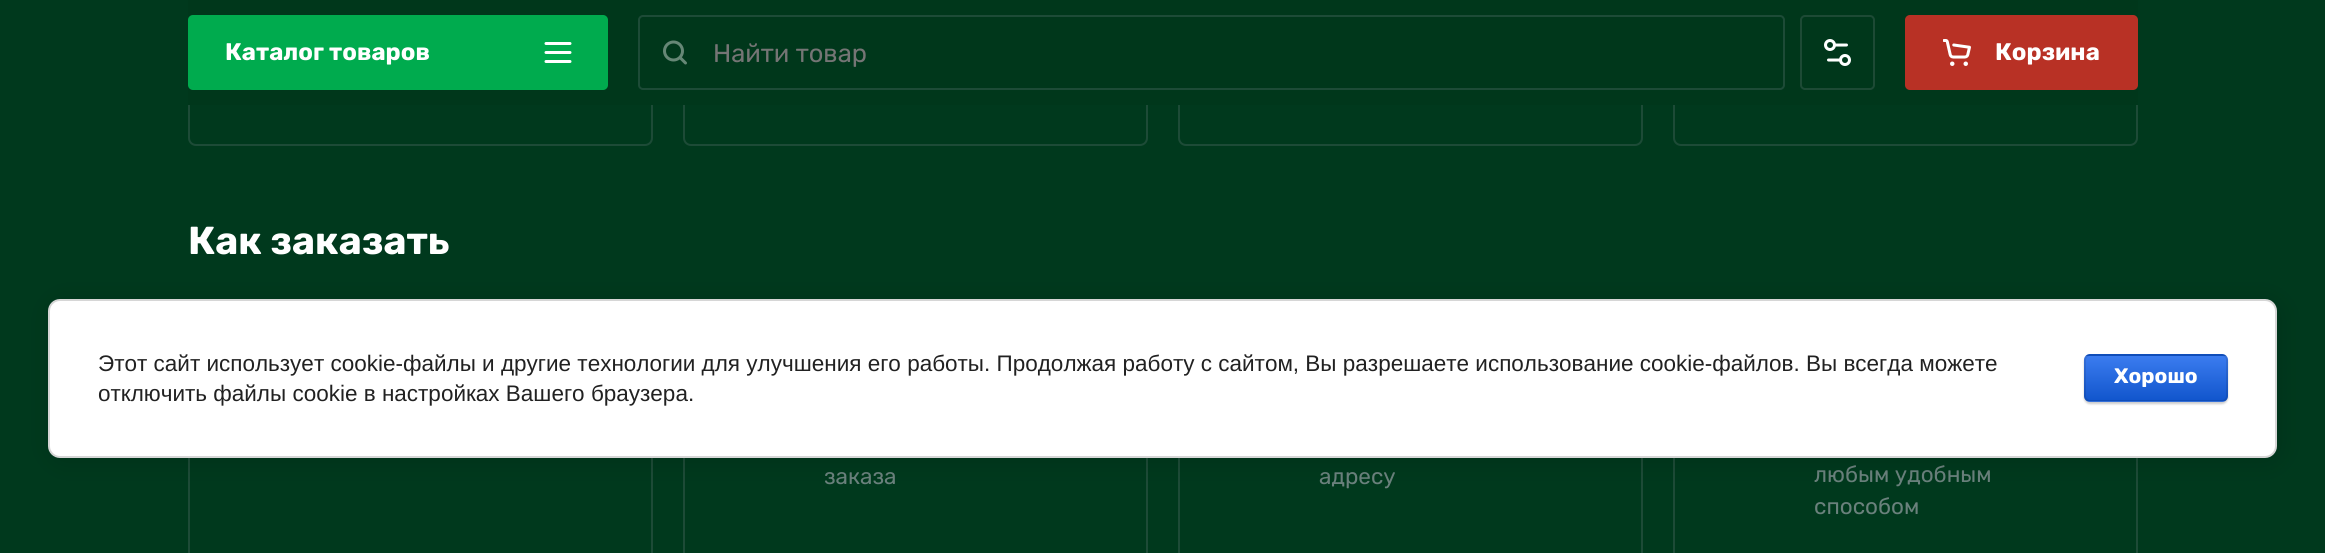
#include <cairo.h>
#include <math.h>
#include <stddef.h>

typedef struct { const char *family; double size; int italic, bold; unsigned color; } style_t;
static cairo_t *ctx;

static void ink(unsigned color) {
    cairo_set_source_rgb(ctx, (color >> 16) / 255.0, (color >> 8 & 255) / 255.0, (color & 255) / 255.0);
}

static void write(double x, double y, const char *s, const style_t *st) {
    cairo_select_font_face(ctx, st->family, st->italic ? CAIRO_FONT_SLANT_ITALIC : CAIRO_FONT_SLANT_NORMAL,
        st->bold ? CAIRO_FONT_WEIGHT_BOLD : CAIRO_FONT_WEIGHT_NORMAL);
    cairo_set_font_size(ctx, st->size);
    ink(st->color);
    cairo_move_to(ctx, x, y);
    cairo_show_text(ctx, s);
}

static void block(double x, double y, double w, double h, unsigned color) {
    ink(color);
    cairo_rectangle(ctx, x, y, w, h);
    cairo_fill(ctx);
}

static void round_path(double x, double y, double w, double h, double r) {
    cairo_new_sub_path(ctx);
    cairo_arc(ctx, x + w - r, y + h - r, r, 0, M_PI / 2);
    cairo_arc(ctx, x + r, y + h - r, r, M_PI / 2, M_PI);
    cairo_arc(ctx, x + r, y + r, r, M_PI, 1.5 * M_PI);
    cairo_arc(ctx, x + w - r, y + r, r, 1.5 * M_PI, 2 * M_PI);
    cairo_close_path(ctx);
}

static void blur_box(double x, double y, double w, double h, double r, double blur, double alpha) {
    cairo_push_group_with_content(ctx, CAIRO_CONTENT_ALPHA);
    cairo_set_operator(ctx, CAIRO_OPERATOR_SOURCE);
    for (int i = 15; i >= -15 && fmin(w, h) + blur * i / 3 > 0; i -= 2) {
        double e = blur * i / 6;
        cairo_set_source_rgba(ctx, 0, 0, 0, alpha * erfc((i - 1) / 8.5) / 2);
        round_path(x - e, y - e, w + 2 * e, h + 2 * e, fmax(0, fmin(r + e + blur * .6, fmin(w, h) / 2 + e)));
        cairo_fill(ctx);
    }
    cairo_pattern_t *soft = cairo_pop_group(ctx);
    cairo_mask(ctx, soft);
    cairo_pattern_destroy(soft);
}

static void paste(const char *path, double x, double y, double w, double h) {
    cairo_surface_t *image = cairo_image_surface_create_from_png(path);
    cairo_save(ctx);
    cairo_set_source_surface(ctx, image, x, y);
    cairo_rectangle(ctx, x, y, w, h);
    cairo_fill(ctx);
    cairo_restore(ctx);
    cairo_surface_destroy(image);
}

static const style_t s1 = {"Rubik", 24, 0, 1, 0xffffff};
static const style_t s2 = {"Rubik", 25.5, 0, 0, 0x757575};
static const style_t s3 = {"Rubik", 39, 0, 1, 0xffffff};
static const style_t s4 = {"Rubik", 22.5, 0, 0, 0x6a817c};
static const style_t s5 = {"Liberation Sans", 22.5, 0, 0, 0x212121};
static const style_t s6 = {"Rubik", 21, 0, 1, 0xffffff};

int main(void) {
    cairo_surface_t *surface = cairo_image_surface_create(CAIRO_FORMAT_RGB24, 2325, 553);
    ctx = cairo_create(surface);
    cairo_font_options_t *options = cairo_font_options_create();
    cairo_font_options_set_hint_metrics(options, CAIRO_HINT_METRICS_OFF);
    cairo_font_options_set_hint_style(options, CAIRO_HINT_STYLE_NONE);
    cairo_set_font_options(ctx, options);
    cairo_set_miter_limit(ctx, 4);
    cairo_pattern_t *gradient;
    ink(0x00391d);
    cairo_paint(ctx);
    round_path(189, -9, 463, 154, 7);
    ink(0x1d4b37);
    cairo_stroke(ctx);
    round_path(684, -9, 463, 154, 7);
    cairo_stroke(ctx);
    round_path(1179, -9, 463, 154, 7);
    cairo_stroke(ctx);
    round_path(1674, -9, 463, 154, 7);
    cairo_stroke(ctx);
    block(188, 0, 1950, 105, 0x00371b);
    ink(0x00ab4e);
    round_path(188, 15, 420, 75, 5);
    cairo_fill(ctx);
    write(225, 60, "Каталог товаров", &s1);
    paste("pic1.png", 544, 42, 28, 21);
    round_path(639, 16, 1145, 73, 4);
    ink(0x1d4b37);
    cairo_stroke(ctx);
    paste("pic2.png", 663, 40, 24, 25);
    write(713, 62, "Найти товар", &s2);
    round_path(1801, 16, 73, 73, 4);
    ink(0x1d4a35);
    cairo_stroke(ctx);
    paste("pic3.png", 1824, 39, 27, 27);
    ink(0xb83125);
    round_path(1905, 15, 233, 75, 5);
    cairo_fill(ctx);
    paste("pic4.png", 1943, 39, 28, 27);
    write(1995, 60, "Корзина", &s1);
    write(188, 254, "Как заказать", &s3);
    cairo_rectangle(ctx, 189, 310, 463, 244);
    ink(0x1d4b37);
    cairo_stroke(ctx);
    cairo_rectangle(ctx, 684, 310, 463, 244);
    cairo_stroke(ctx);
    write(824, 484, "заказа", &s4);
    cairo_rectangle(ctx, 1179, 310, 463, 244);
    ink(0x1d4b37);
    cairo_stroke(ctx);
    write(1319, 484, "адресу", &s4);
    cairo_rectangle(ctx, 1674, 310, 463, 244);
    ink(0x1d4b37);
    cairo_stroke(ctx);
    write(1814, 482, "любым удобным", &s4);
    write(1814, 514, "способом", &s4);
    ink(0x000000);
    blur_box(51, 302, 2229, 159, 12, 13.5, 0.14);
    ink(0xffffff);
    round_path(49, 300, 2227, 157, 11);
    cairo_fill_preserve(ctx);
    ink(0xd6d6d6);
    cairo_stroke(ctx);
    write(98, 371, "Этот сайт использует cookie-файлы и другие технологии для улучшения его работы. Продолжая работу с сайтом, Вы разрешаете использование cookie-файлов. Вы всегда можете", &s5);
    write(98, 401, "отключить файлы cookie в настройках Вашего браузера.", &s5);
    ink(0x000000);
    blur_box(2084, 356, 144, 48, 6, 1, 0.2);
    cairo_save(ctx);
    round_path(2084, 354, 144, 48, 6);
    cairo_clip(ctx);
    gradient = cairo_pattern_create_linear(2156, 311, 2156, 356);
    cairo_pattern_add_color_stop_rgba(gradient, 0, 0.231, 0.486, 0.937, 1);
    cairo_pattern_add_color_stop_rgba(gradient, 1, 0.067, 0.333, 0.8, 1);
    cairo_set_source(ctx, gradient);
    cairo_pattern_destroy(gradient);
    cairo_rectangle(ctx, 2084, 354, 144, 2);
    cairo_fill(ctx);
    gradient = cairo_pattern_create_linear(2156, 356, 2156, 401);
    cairo_pattern_add_color_stop_rgba(gradient, 0, 0.231, 0.486, 0.937, 1);
    cairo_pattern_add_color_stop_rgba(gradient, 1, 0.067, 0.333, 0.8, 1);
    cairo_set_source(ctx, gradient);
    cairo_pattern_destroy(gradient);
    cairo_rectangle(ctx, 2084, 356, 144, 45);
    cairo_fill(ctx);
    gradient = cairo_pattern_create_linear(2156, 401, 2156, 446);
    cairo_pattern_add_color_stop_rgba(gradient, 0, 0.231, 0.486, 0.937, 1);
    cairo_pattern_add_color_stop_rgba(gradient, 1, 0.067, 0.333, 0.8, 1);
    cairo_set_source(ctx, gradient);
    cairo_pattern_destroy(gradient);
    cairo_rectangle(ctx, 2084, 401, 144, 1);
    cairo_fill(ctx);
    cairo_restore(ctx);
    round_path(2085, 355, 142, 46, 5);
    cairo_set_source_rgba(ctx, 0, 0, 0, 0.1);
    cairo_stroke(ctx);
    write(2114, 383, "Хорошо", &s6);
    cairo_surface_write_to_png(surface, "screenshot.png");
    cairo_font_options_destroy(options);
    cairo_destroy(ctx);
    cairo_surface_destroy(surface);
    return 0;
}
